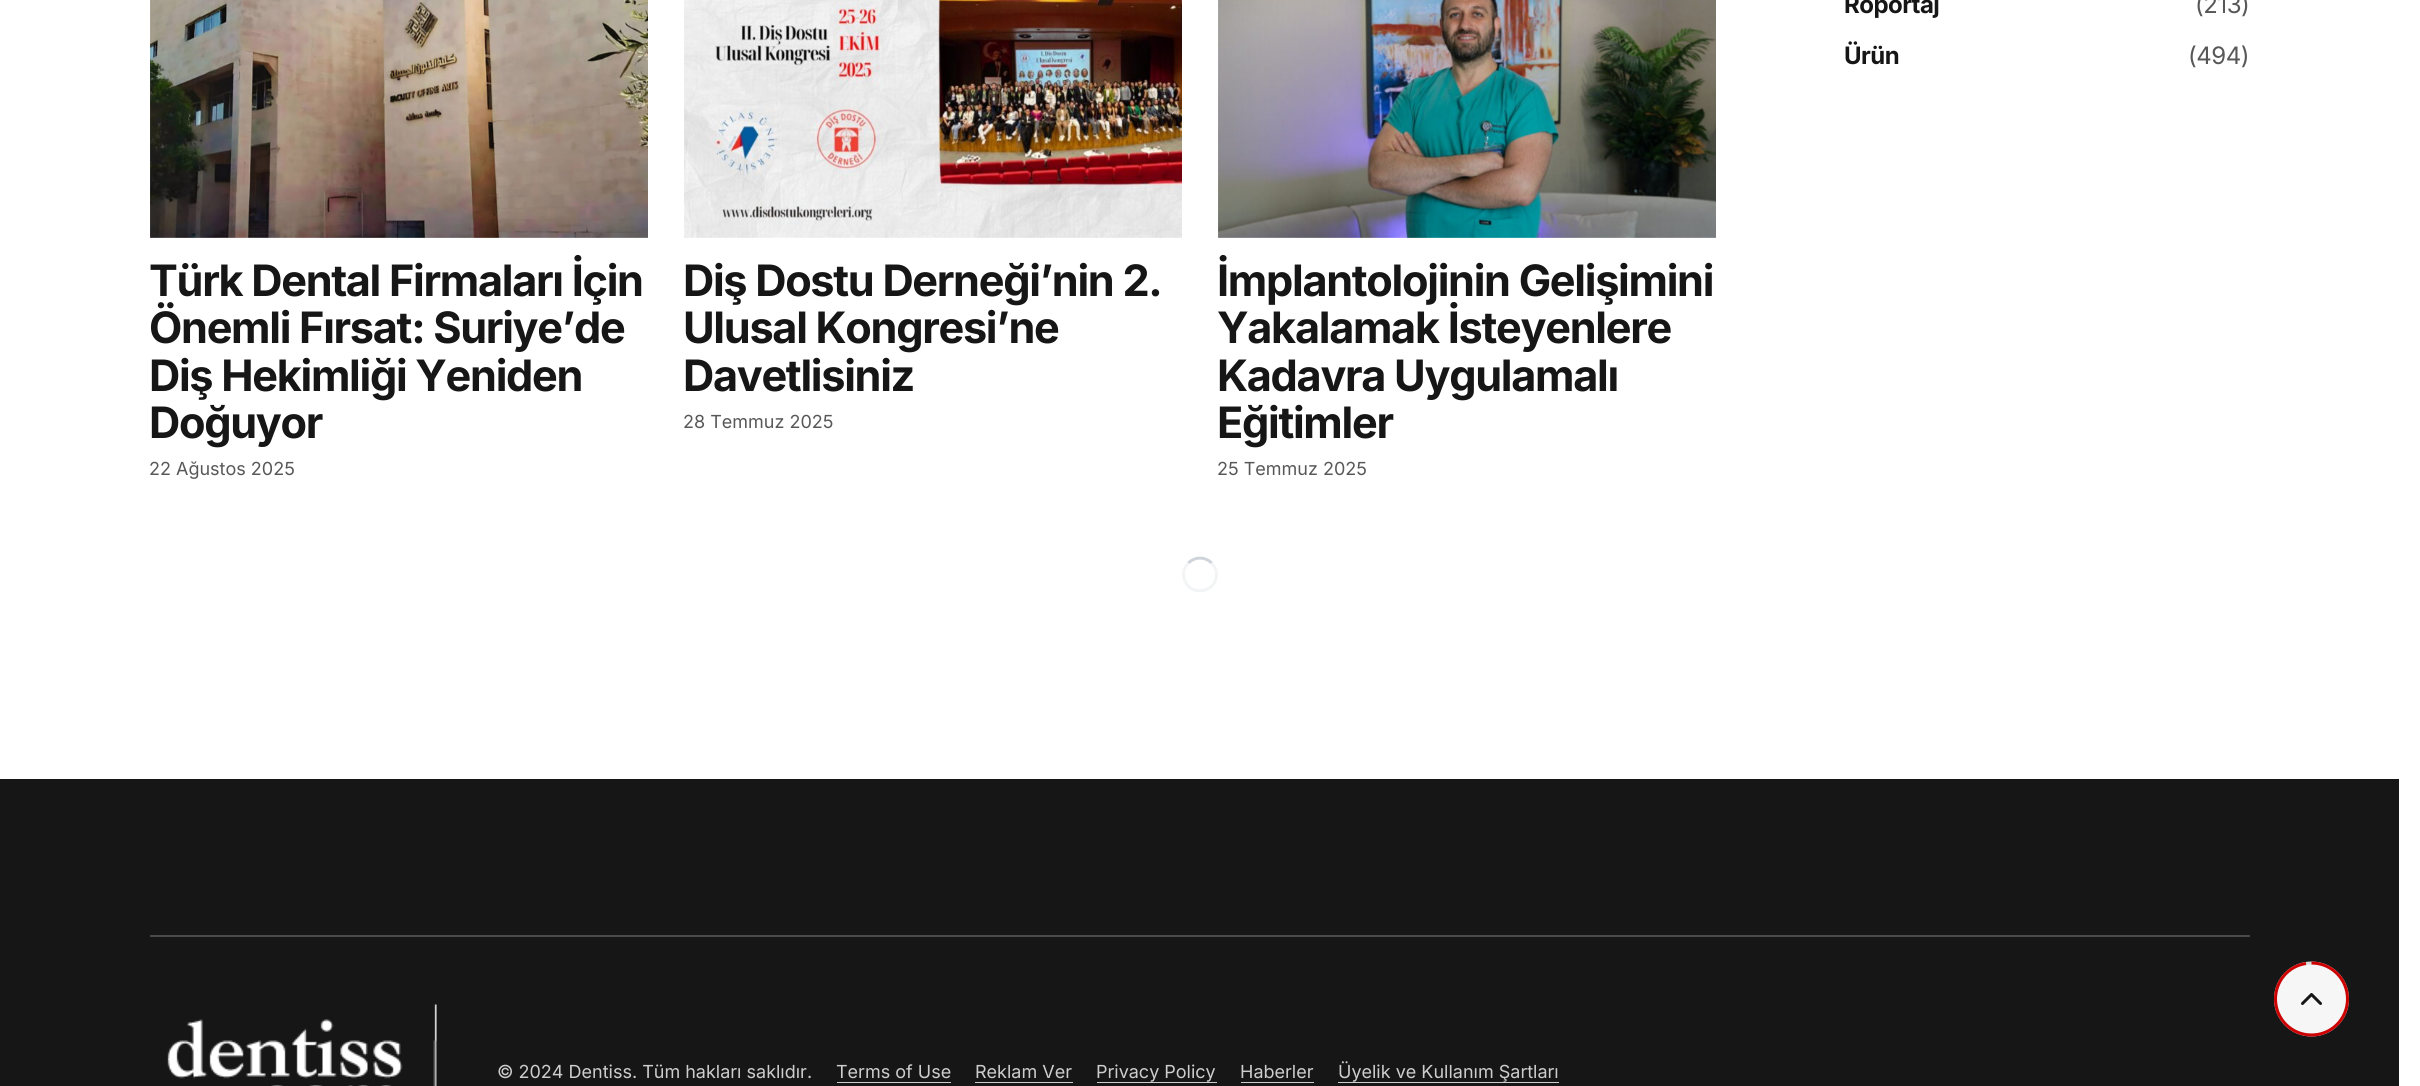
#include <cairo.h>
#include <math.h>
#include <stddef.h>

typedef struct { const char *family; double size; int italic, bold; unsigned color; } style_t;
static cairo_t *ctx;

static void ink(unsigned color) {
    cairo_set_source_rgb(ctx, (color >> 16) / 255.0, (color >> 8 & 255) / 255.0, (color & 255) / 255.0);
}

static void write(double x, double y, const char *s, const style_t *st) {
    cairo_select_font_face(ctx, st->family, st->italic ? CAIRO_FONT_SLANT_ITALIC : CAIRO_FONT_SLANT_NORMAL,
        st->bold ? CAIRO_FONT_WEIGHT_BOLD : CAIRO_FONT_WEIGHT_NORMAL);
    cairo_set_font_size(ctx, st->size);
    ink(st->color);
    cairo_move_to(ctx, x, y);
    cairo_show_text(ctx, s);
}

static void write_spaced(double x, double y, const char *s, double letter, double word) {
    cairo_move_to(ctx, x, y);
    while (*s) {
        char ch[5] = {0};
        int n = 0;
        do ch[n++] = *s++; while ((*s & 0xC0) == 0x80);
        cairo_show_text(ctx, ch);
        cairo_rel_move_to(ctx, letter + word * (*ch == ' '), 0);
    }
}

static void block(double x, double y, double w, double h, unsigned color) {
    ink(color);
    cairo_rectangle(ctx, x, y, w, h);
    cairo_fill(ctx);
}

static void paste(const char *path, double x, double y, double w, double h) {
    cairo_surface_t *image = cairo_image_surface_create_from_png(path);
    cairo_save(ctx);
    cairo_set_source_surface(ctx, image, x, y);
    cairo_rectangle(ctx, x, y, w, h);
    cairo_fill(ctx);
    cairo_restore(ctx);
    cairo_surface_destroy(image);
}

static const style_t s1 = {"Inter", 18, 0, 0, 0x585858};
static const style_t s2 = {"Inter", 18, 0, 0, 0xcdcdcd};

int main(void) {
    cairo_surface_t *surface = cairo_image_surface_create(CAIRO_FORMAT_RGB24, 2420, 1086);
    ctx = cairo_create(surface);
    cairo_font_options_t *options = cairo_font_options_create();
    cairo_font_options_set_hint_metrics(options, CAIRO_HINT_METRICS_OFF);
    cairo_font_options_set_hint_style(options, CAIRO_HINT_STYLE_NONE);
    cairo_set_font_options(ctx, options);
    cairo_set_miter_limit(ctx, 4);
    ink(0xffffff);
    cairo_paint(ctx);
    cairo_select_font_face(ctx, "Inter", CAIRO_FONT_SLANT_NORMAL, CAIRO_FONT_WEIGHT_BOLD);
    cairo_set_font_size(ctx, 24);
    ink(0x161616);
    write_spaced(1844, 13, "Röportaj", -0.5, 0);
    cairo_select_font_face(ctx, "Inter", CAIRO_FONT_SLANT_NORMAL, CAIRO_FONT_WEIGHT_NORMAL);
    ink(0x585858);
    write_spaced(2195, 13, "(213)", -0.5, 0);
    cairo_select_font_face(ctx, "Inter", CAIRO_FONT_SLANT_NORMAL, CAIRO_FONT_WEIGHT_BOLD);
    ink(0x161616);
    write_spaced(1844, 64, "Ürün", -0.5, 0);
    cairo_select_font_face(ctx, "Inter", CAIRO_FONT_SLANT_NORMAL, CAIRO_FONT_WEIGHT_NORMAL);
    ink(0x585858);
    write_spaced(2188, 64, "(494)", -0.5, 0);
    paste("pic1.png", 150, 0, 498, 238);
    cairo_select_font_face(ctx, "Inter", CAIRO_FONT_SLANT_NORMAL, CAIRO_FONT_WEIGHT_BOLD);
    cairo_set_font_size(ctx, 43.25);
    ink(0x161616);
    write_spaced(149, 296, "Türk Dental Firmaları İçin", -1.3, 0);
    write_spaced(149, 343, "Önemli Fırsat: Suriye’de", -1.3, 0);
    write_spaced(149, 391, "Diş Hekimliği Yeniden", -1.3, 0);
    write_spaced(149, 438, "Doğuyor", -1.3, 0);
    write(149, 475, "22 Ağustos 2025", &s1);
    paste("pic2.png", 684, 0, 498, 238);
    cairo_select_font_face(ctx, "Inter", CAIRO_FONT_SLANT_NORMAL, CAIRO_FONT_WEIGHT_BOLD);
    cairo_set_font_size(ctx, 43.25);
    ink(0x161616);
    write_spaced(683, 296, "Diş Dostu Derneği’nin 2.", -1.3, 0);
    write_spaced(683, 343, "Ulusal Kongresi’ne", -1.3, 0);
    write_spaced(683, 391, "Davetlisiniz", -1.3, 0);
    write(683, 428, "28 Temmuz 2025", &s1);
    paste("pic3.png", 1218, 0, 498, 238);
    cairo_select_font_face(ctx, "Inter", CAIRO_FONT_SLANT_NORMAL, CAIRO_FONT_WEIGHT_BOLD);
    cairo_set_font_size(ctx, 43.25);
    ink(0x161616);
    write_spaced(1217, 296, "İmplantolojinin Gelişimini", -1.3, 0);
    write_spaced(1217, 343, "Yakalamak İsteyenlere", -1.3, 0);
    write_spaced(1217, 391, "Kadavra Uygulamalı", -1.3, 0);
    write_spaced(1217, 438, "Eğitimler", -1.3, 0);
    write(1217, 475, "25 Temmuz 2025", &s1);
    cairo_new_path(ctx);
    cairo_move_to(ctx, 1188.5, 563);
    cairo_curve_to(ctx, 1194.5, 556.5, 1205.5, 556.5, 1211.5, 563);
    ink(0xced4da);
    cairo_set_line_width(ctx, 3);
    cairo_stroke(ctx);
    cairo_new_path(ctx);
    cairo_move_to(ctx, 1211.5, 563);
    cairo_curve_to(ctx, 1214.5, 566, 1216.5, 570, 1216.5, 574.5);
    cairo_curve_to(ctx, 1216.5, 594, 1187.5, 597, 1184, 577.5);
    cairo_curve_to(ctx, 1182.5, 572.5, 1184.5, 566.5, 1188.5, 563);
    cairo_set_source_rgba(ctx, 0.808, 0.831, 0.855, 0.25);
    cairo_stroke(ctx);
    block(0, 779, 2399, 307, 0x161616);
    ink(0xf6f6f6);
    cairo_arc(ctx, 2312, 999, 36, 0, 2 * M_PI);
    cairo_fill(ctx);
    paste("pic4.png", 2301, 993, 21, 12);
    cairo_new_path(ctx);
    cairo_move_to(ctx, 2311.5, 963);
    cairo_curve_to(ctx, 2331.5, 963, 2347.5, 979, 2347.5, 999);
    cairo_curve_to(ctx, 2347.5, 1019, 2331.5, 1035, 2311.5, 1035);
    cairo_curve_to(ctx, 2291.5, 1035, 2275.5, 1019, 2275.5, 999);
    cairo_curve_to(ctx, 2275.5, 979, 2291.5, 963, 2311.5, 963);
    ink(0xd9d9d9);
    cairo_stroke(ctx);
    cairo_new_path(ctx);
    cairo_move_to(ctx, 2311.5, 963);
    cairo_curve_to(ctx, 2331.5, 963, 2347.5, 979, 2347.5, 999);
    cairo_curve_to(ctx, 2347.5, 1019, 2331.5, 1035, 2311.5, 1035);
    cairo_curve_to(ctx, 2291.5, 1035, 2275.5, 1019, 2275.5, 999);
    cairo_curve_to(ctx, 2275.5, 981, 2288.5, 966, 2306, 963.5);
    ink(0xcc0100);
    cairo_stroke(ctx);
    block(150, 935, 2100, 2, 0x494949);
    paste("pic5.png", 167, 1004, 270, 82);
    write(497, 1078, "© 2024 Dentiss. Tüm hakları saklıdır.", &s2);
    write(836, 1078, "Terms of Use", &s2);
    block(837, 1082, 114, 1, 0xcdcdcd);
    write(975, 1078, "Reklam Ver", &s2);
    block(975, 1082, 98, 1, 0xcdcdcd);
    write(1096, 1078, "Privacy Policy", &s2);
    block(1097, 1082, 120, 1, 0xcdcdcd);
    write(1240, 1078, "Haberler", &s2);
    block(1241, 1082, 73, 1, 0xcdcdcd);
    write(1338, 1078, "Üyelik ve Kullanım Şartları", &s2);
    block(1338, 1082, 221, 1, 0xcdcdcd);
    cairo_surface_write_to_png(surface, "screenshot.png");
    cairo_font_options_destroy(options);
    cairo_destroy(ctx);
    cairo_surface_destroy(surface);
    return 0;
}
